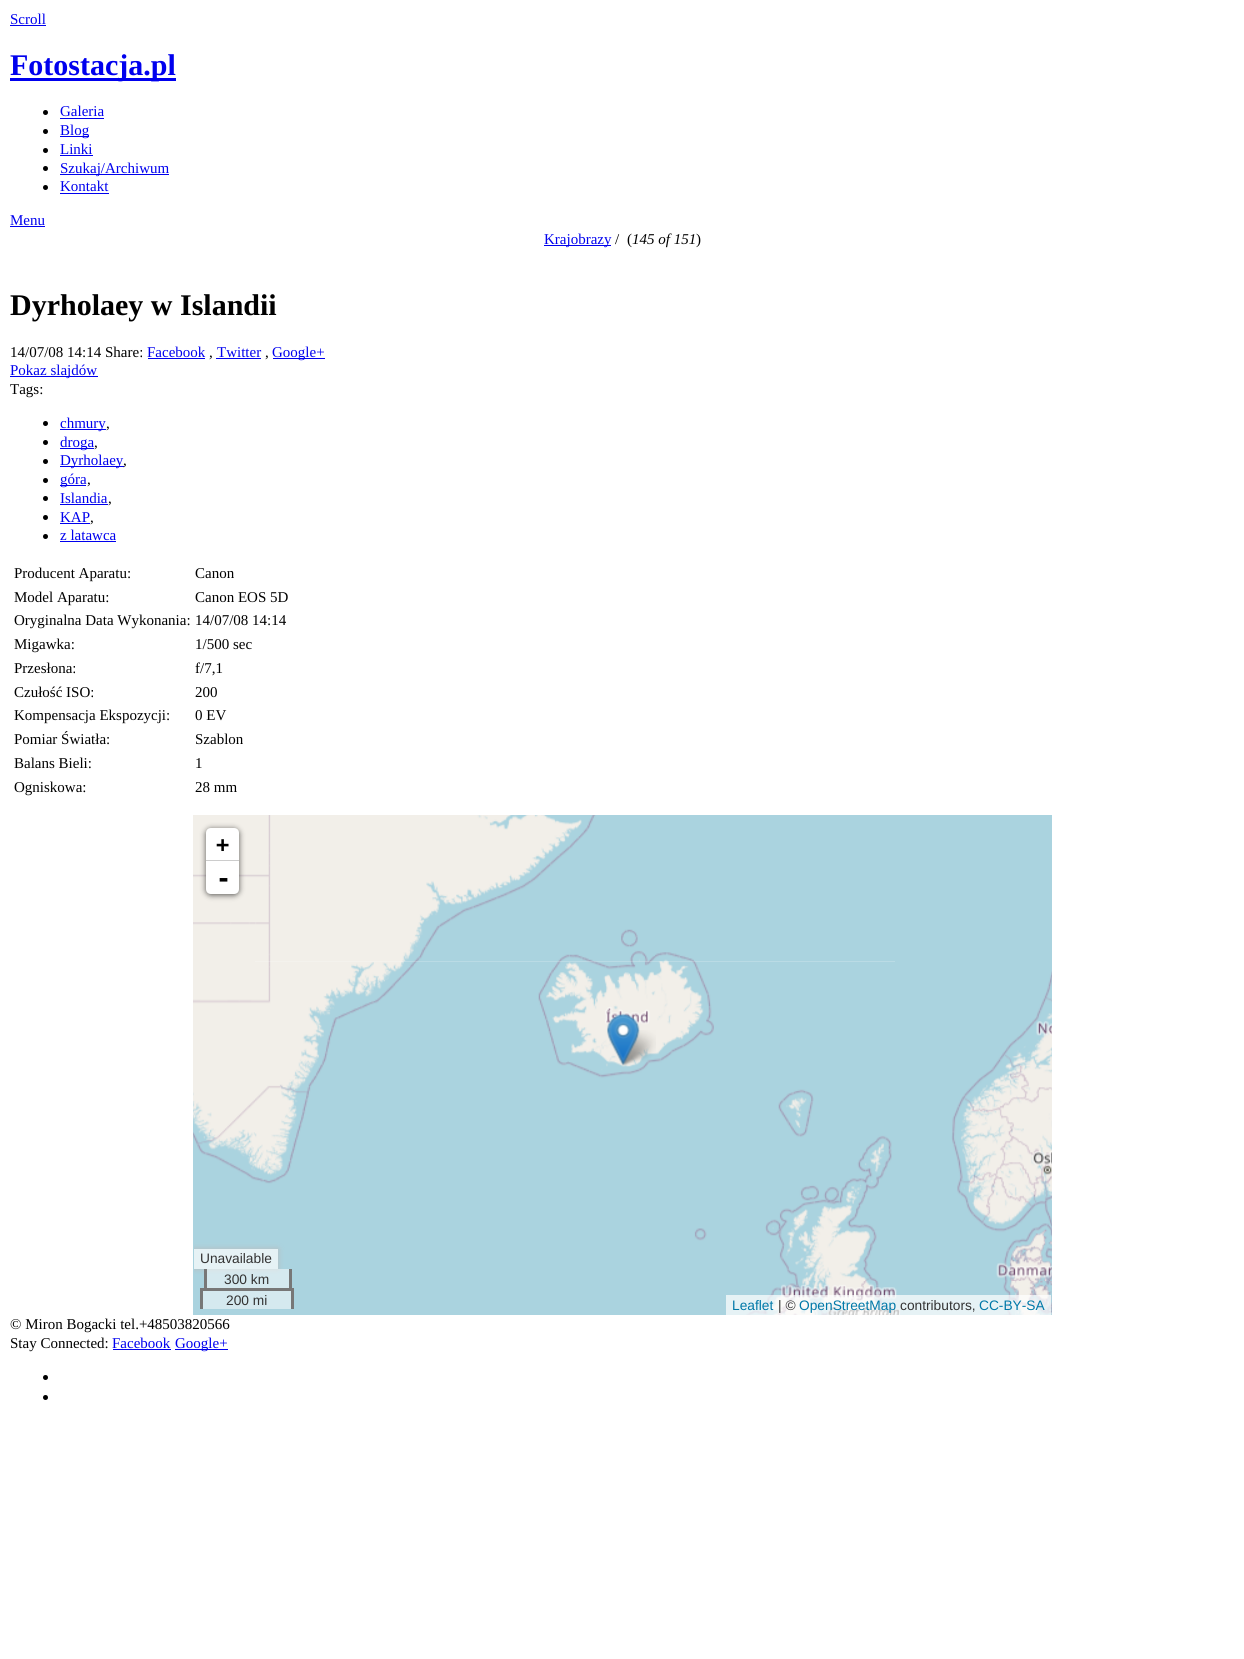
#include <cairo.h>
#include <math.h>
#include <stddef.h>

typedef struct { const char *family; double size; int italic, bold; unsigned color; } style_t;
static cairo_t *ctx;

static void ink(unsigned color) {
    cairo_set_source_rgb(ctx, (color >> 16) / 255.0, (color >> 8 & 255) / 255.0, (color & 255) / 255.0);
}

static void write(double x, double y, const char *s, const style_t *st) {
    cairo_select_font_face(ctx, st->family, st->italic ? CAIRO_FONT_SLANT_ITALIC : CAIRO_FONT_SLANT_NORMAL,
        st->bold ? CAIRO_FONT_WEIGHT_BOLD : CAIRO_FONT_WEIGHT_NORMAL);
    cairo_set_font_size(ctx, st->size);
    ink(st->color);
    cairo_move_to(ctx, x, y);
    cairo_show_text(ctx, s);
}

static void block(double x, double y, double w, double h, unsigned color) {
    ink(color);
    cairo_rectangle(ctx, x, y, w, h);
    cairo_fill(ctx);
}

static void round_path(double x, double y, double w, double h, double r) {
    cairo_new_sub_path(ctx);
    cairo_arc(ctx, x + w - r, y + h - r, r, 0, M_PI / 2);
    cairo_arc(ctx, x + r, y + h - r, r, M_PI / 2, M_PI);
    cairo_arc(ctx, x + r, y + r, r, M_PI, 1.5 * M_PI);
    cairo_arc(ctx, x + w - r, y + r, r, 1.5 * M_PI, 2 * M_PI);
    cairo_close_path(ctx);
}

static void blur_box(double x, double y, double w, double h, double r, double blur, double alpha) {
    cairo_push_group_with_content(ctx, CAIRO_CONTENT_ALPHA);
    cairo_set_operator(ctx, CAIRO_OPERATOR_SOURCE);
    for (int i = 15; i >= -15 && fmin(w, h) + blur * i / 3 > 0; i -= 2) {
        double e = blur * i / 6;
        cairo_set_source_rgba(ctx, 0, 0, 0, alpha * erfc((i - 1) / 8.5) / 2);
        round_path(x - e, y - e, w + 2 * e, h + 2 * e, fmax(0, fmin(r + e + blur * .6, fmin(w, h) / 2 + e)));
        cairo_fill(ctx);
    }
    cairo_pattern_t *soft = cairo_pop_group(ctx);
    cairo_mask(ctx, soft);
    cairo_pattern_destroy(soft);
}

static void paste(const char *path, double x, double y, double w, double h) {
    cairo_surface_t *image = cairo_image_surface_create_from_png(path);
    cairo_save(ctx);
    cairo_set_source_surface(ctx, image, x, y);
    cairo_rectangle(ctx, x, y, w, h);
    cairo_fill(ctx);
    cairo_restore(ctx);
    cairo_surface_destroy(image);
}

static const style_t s1 = {"Liberation Serif", 15, 0, 0, 0x0000ee};
static const style_t s2 = {"Liberation Serif", 30, 0, 1, 0x0000ee};
static const style_t s3 = {"Liberation Serif", 15, 0, 0, 0x000000};
static const style_t s4 = {"Liberation Serif", 15, 1, 0, 0x000000};
static const style_t s5 = {"Liberation Serif", 30, 0, 1, 0x000000};
static const style_t s6 = {"DejaVu Sans Mono", 22, 0, 1, 0x000000};
static const style_t s7 = {"DejaVu Sans Mono", 25, 0, 1, 0x000000};
static const style_t s8 = {"Liberation Sans", 13.75, 0, 0, 0x333333};
static const style_t s9 = {"Liberation Sans", 13.75, 0, 0, 0x0078a8};

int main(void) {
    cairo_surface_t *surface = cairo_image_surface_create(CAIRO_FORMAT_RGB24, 1244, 1659);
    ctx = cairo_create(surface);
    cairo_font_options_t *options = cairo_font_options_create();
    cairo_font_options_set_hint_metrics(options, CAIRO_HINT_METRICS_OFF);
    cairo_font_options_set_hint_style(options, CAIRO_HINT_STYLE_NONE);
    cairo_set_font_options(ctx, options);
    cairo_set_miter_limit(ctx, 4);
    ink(0xffffff);
    cairo_paint(ctx);
    write(10, 24, "Scroll", &s1);
    block(10, 25, 36, 1, 0x0000ee);
    block(10, 78, 166, 3, 0x0000ee);
    write(10, 75, "Fotostacja.pl", &s2);
    ink(0x000000);
    cairo_new_path(ctx);
    cairo_arc(ctx, 45.5, 112.5, 2.5, 0, 2 * M_PI);
    cairo_fill(ctx);
    write(60, 116, "Galeria", &s1);
    block(60, 118, 44, 1, 0x0000ee);
    ink(0x000000);
    cairo_new_path(ctx);
    cairo_arc(ctx, 45.5, 131.5, 2.5, 0, 2 * M_PI);
    cairo_fill(ctx);
    block(60, 136, 29, 1, 0x0000ee);
    write(60, 135, "Blog", &s1);
    ink(0x000000);
    cairo_new_path(ctx);
    cairo_arc(ctx, 45.5, 150.5, 2.5, 0, 2 * M_PI);
    cairo_fill(ctx);
    write(60, 154, "Linki", &s1);
    block(60, 155, 33, 1, 0x0000ee);
    ink(0x000000);
    cairo_new_path(ctx);
    cairo_arc(ctx, 45.5, 168.5, 2.5, 0, 2 * M_PI);
    cairo_fill(ctx);
    block(60, 174, 109, 1, 0x0000ee);
    write(60, 173, "Szukaj/Archiwum", &s1);
    ink(0x000000);
    cairo_new_path(ctx);
    cairo_arc(ctx, 45.5, 187.5, 2.5, 0, 2 * M_PI);
    cairo_fill(ctx);
    write(60, 191, "Kontakt", &s1);
    block(60, 193, 49, 1, 0x0000ee);
    write(10, 225, "Menu", &s1);
    block(10, 226, 35, 1, 0x0000ee);
    block(544, 245, 67, 1, 0x0000ee);
    write(544, 244, "Krajobrazy", &s1);
    write(615, 244, "/", &s3);
    write(627, 244, "(", &s3);
    write(632, 244, "145 of 151", &s4);
    write(696, 244, ")", &s3);
    write(10, 315, "Dyrholaey w Islandii", &s5);
    write(10, 357, "14/07/08 14:14 Share:", &s3);
    write(147, 357, "Facebook", &s1);
    write(209, 357, ",", &s3);
    block(148, 358, 57, 1, 0x0000ee);
    block(216, 358, 45, 1, 0x0000ee);
    write(217, 357, "Twitter", &s1);
    write(265, 357, ",", &s3);
    block(273, 358, 52, 1, 0x0000ee);
    write(272, 357, "Google+", &s1);
    block(10, 376, 88, 1, 0x0000ee);
    write(10, 375, "Pokaz slajdów", &s1);
    write(10, 394, "Tags:", &s3);
    cairo_new_path(ctx);
    cairo_arc(ctx, 45.5, 423.5, 2.5, 0, 2 * M_PI);
    cairo_fill(ctx);
    block(60, 429, 46, 1, 0x0000ee);
    write(60, 428, "chmury", &s1);
    write(106, 428, ",", &s3);
    cairo_new_path(ctx);
    cairo_arc(ctx, 45.5, 442.5, 2.5, 0, 2 * M_PI);
    cairo_fill(ctx);
    block(60, 448, 34, 1, 0x0000ee);
    write(60, 447, "droga", &s1);
    write(94, 447, ",", &s3);
    cairo_new_path(ctx);
    cairo_arc(ctx, 45.5, 461.5, 2.5, 0, 2 * M_PI);
    cairo_fill(ctx);
    block(60, 466, 64, 1, 0x0000ee);
    write(60, 465, "Dyrholaey", &s1);
    write(123, 465, ",", &s3);
    cairo_new_path(ctx);
    cairo_arc(ctx, 45.5, 480.5, 2.5, 0, 2 * M_PI);
    cairo_fill(ctx);
    block(60, 485, 26, 1, 0x0000ee);
    write(60, 484, "góra", &s1);
    write(87, 484, ",", &s3);
    cairo_new_path(ctx);
    cairo_arc(ctx, 45.5, 498.5, 2.5, 0, 2 * M_PI);
    cairo_fill(ctx);
    write(60, 503, "Islandia", &s1);
    block(60, 504, 48, 1, 0x0000ee);
    write(108, 503, ",", &s3);
    cairo_new_path(ctx);
    cairo_arc(ctx, 45.5, 517.5, 2.5, 0, 2 * M_PI);
    cairo_fill(ctx);
    write(60, 522, "KAP", &s1);
    block(60, 523, 30, 1, 0x0000ee);
    write(90, 522, ",", &s3);
    cairo_new_path(ctx);
    cairo_arc(ctx, 45.5, 536.5, 2.5, 0, 2 * M_PI);
    cairo_fill(ctx);
    write(60, 540, "z latawca", &s1);
    block(60, 541, 56, 1, 0x0000ee);
    write(14, 578, "Producent Aparatu:", &s3);
    write(195, 578, "Canon", &s3);
    write(14, 602, "Model Aparatu:", &s3);
    write(195, 602, "Canon EOS 5D", &s3);
    write(14, 625, "Oryginalna Data Wykonania:", &s3);
    write(195, 625, "14/07/08 14:14", &s3);
    write(14, 649, "Migawka:", &s3);
    write(195, 649, "1/500 sec", &s3);
    write(14, 673, "Przesłona:", &s3);
    write(195, 673, "f/7,1", &s3);
    write(14, 697, "Czułość ISO:", &s3);
    write(195, 697, "200", &s3);
    write(14, 720, "Kompensacja Ekspozycji:", &s3);
    write(195, 720, "0 EV", &s3);
    write(14, 744, "Pomiar Światła:", &s3);
    write(195, 744, "Szablon", &s3);
    write(14, 768, "Balans Bieli:", &s3);
    write(195, 768, "1", &s3);
    write(14, 792, "Ogniskowa:", &s3);
    write(195, 792, "28 mm", &s3);
    paste("pic1.png", 193, 815, 62, 146);
    paste("pic5.png", 255, 961, 320, 320);
    paste("pic2.png", 255, 815, 320, 147);
    paste("pic6.png", 575, 961, 320, 320);
    paste("pic3.png", 575, 815, 320, 147);
    block(895, 815, 157, 146, 0xaad3df);
    paste("pic4.png", 193, 961, 62, 320);
    paste("pic7.png", 895, 961, 157, 320);
    block(193, 1281, 382, 34, 0xaad3df);
    paste("pic8.png", 575, 1281, 320, 34);
    paste("pic9.png", 895, 1281, 157, 34);
    paste("pic11.png", 618, 1030, 38, 36);
    paste("pic10.png", 607, 1013, 33, 53);
    ink(0x000000);
    blur_box(206, 829, 33, 66, 5, 3, 0.65);
    ink(0xffffff);
    cairo_new_path(ctx);
    cairo_move_to(ctx, 211, 828);
    cairo_line_to(ctx, 234, 828);
    cairo_curve_to(ctx, 237, 828, 239, 830, 239, 833);
    cairo_line_to(ctx, 239, 861);
    cairo_line_to(ctx, 206, 861);
    cairo_line_to(ctx, 206, 833);
    cairo_curve_to(ctx, 206, 830, 208, 828, 211, 828);
    cairo_close_path(ctx);
    cairo_fill(ctx);
    block(206, 860, 33, 1, 0xcccccc);
    write(216, 852, "+", &s6);
    ink(0xffffff);
    cairo_new_path(ctx);
    cairo_move_to(ctx, 206, 861);
    cairo_line_to(ctx, 239, 861);
    cairo_line_to(ctx, 239, 889);
    cairo_curve_to(ctx, 239, 892, 237, 894, 234, 894);
    cairo_line_to(ctx, 211, 894);
    cairo_curve_to(ctx, 208, 894, 206, 892, 206, 889);
    cairo_close_path(ctx);
    cairo_fill(ctx);
    write(216, 887, "-", &s7);
    cairo_save(ctx);
    cairo_rectangle(ctx, 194, 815, 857, 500);
    cairo_clip(ctx);
    cairo_set_fill_rule(ctx, CAIRO_FILL_RULE_EVEN_ODD);
    cairo_new_path(ctx);
    cairo_move_to(ctx, 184, 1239);
    cairo_line_to(ctx, 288, 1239);
    cairo_line_to(ctx, 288, 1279);
    cairo_line_to(ctx, 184, 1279);
    cairo_close_path(ctx);
    cairo_move_to(ctx, 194, 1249);
    cairo_line_to(ctx, 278, 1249);
    cairo_line_to(ctx, 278, 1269);
    cairo_line_to(ctx, 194, 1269);
    cairo_close_path(ctx);
    cairo_clip(ctx);
    ink(0xbbbbbb);
    blur_box(194, 1249, 84, 20, 0, 3, 1);
    cairo_restore(ctx);
    cairo_set_source_rgba(ctx, 1, 1, 1, 0.7);
    cairo_rectangle(ctx, 194, 1249, 84, 20);
    cairo_fill(ctx);
    write(200, 1263, "Unavailable", &s8);
    cairo_set_source_rgba(ctx, 1, 1, 1, 0.5);
    cairo_rectangle(ctx, 207, 1269, 82, 19);
    cairo_fill(ctx);
    block(289, 1269, 3, 21, 0x777777);
    block(204, 1269, 3, 21, 0x777777);
    write(224, 1284, "300 km", &s8);
    cairo_set_source_rgba(ctx, 1, 1, 1, 0.5);
    cairo_rectangle(ctx, 203, 1291, 88, 18);
    cairo_fill(ctx);
    block(200, 1288, 94, 3, 0x777777);
    block(291, 1288, 3, 21, 0x777777);
    block(200, 1288, 3, 21, 0x777777);
    write(226, 1305, "200 mi", &s8);
    cairo_set_source_rgba(ctx, 1, 1, 1, 0.7);
    cairo_rectangle(ctx, 726, 1295, 325, 20);
    cairo_fill(ctx);
    write(732, 1310, "Leaflet", &s9);
    write(778, 1310, "| ©", &s8);
    write(799, 1310, "OpenStreetMap", &s9);
    write(900, 1310, "contributors,", &s8);
    write(979, 1310, "CC-BY-SA", &s9);
    write(10, 1329, "© Miron Bogacki tel.+48503820566", &s3);
    write(10, 1348, "Stay Connected:", &s3);
    write(112, 1348, "Facebook", &s1);
    block(113, 1349, 58, 1, 0x0000ee);
    block(175, 1349, 53, 1, 0x0000ee);
    write(175, 1348, "Google+", &s1);
    ink(0x000000);
    cairo_new_path(ctx);
    cairo_arc(ctx, 45.5, 1377.5, 2.5, 0, 2 * M_PI);
    cairo_fill(ctx);
    cairo_arc(ctx, 45.5, 1397.5, 2.5, 0, 2 * M_PI);
    cairo_fill(ctx);
    cairo_surface_write_to_png(surface, "screenshot.png");
    cairo_font_options_destroy(options);
    cairo_destroy(ctx);
    cairo_surface_destroy(surface);
    return 0;
}
